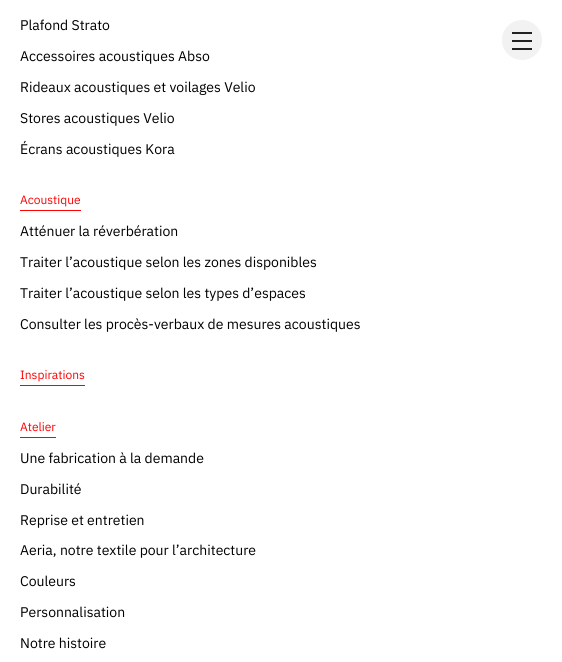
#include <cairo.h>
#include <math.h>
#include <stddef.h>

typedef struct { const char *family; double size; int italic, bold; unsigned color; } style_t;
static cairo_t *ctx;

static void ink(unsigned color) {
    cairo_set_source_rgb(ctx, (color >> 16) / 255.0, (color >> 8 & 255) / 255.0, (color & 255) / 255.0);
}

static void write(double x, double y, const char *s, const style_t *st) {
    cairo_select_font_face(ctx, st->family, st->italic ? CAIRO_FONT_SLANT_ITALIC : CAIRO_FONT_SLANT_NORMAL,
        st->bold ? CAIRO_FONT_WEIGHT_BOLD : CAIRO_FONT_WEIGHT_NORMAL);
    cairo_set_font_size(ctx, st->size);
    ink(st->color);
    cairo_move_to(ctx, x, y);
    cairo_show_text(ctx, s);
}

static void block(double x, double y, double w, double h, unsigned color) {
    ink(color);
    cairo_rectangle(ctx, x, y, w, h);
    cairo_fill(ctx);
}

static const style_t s1 = {"IBM Plex Sans", 14, 0, 0, 0x000000};
static const style_t s2 = {"IBM Plex Sans", 12, 0, 0, 0xff0000};

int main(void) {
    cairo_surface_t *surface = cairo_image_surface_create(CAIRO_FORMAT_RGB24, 562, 662);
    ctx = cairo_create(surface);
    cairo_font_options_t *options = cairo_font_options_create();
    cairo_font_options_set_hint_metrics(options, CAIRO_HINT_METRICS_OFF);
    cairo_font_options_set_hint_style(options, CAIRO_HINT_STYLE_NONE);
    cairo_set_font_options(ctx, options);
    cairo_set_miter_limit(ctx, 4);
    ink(0xffffff);
    cairo_paint(ctx);
    write(20, 30, "Plafond Strato", &s1);
    write(20, 61, "Accessoires acoustiques Abso", &s1);
    write(20, 92, "Rideaux acoustiques et voilages Velio", &s1);
    write(20, 123, "Stores acoustiques Velio", &s1);
    write(20, 154, "Écrans acoustiques Kora", &s1);
    write(20, 204, "Acoustique", &s2);
    block(20, 210, 61, 1, 0xff0000);
    write(20, 236, "Atténuer la réverbération", &s1);
    write(20, 267, "Traiter l’acoustique selon les zones disponibles", &s1);
    write(20, 298, "Traiter l’acoustique selon les types d’espaces", &s1);
    write(20, 329, "Consulter les procès-verbaux de mesures acoustiques", &s1);
    write(20, 379, "Inspirations", &s2);
    block(20, 385, 65, 1, 0xff0000);
    write(20, 431, "Atelier", &s2);
    block(20, 437, 36, 1, 0xff0000);
    write(20, 463, "Une fabrication à la demande", &s1);
    write(20, 494, "Durabilité", &s1);
    write(20, 525, "Reprise et entretien", &s1);
    write(20, 555, "Aeria, notre textile pour l’architecture", &s1);
    write(20, 586, "Couleurs", &s1);
    write(20, 617, "Personnalisation", &s1);
    write(20, 648, "Notre histoire", &s1);
    ink(0xf2f2f2);
    cairo_new_path(ctx);
    cairo_arc(ctx, 522, 40, 20, 0, 2 * M_PI);
    cairo_fill(ctx);
    block(512, 40, 20, 2, 0x222222);
    block(512, 32, 20, 2, 0x222222);
    block(512, 48, 20, 2, 0x222222);
    cairo_surface_write_to_png(surface, "screenshot.png");
    cairo_font_options_destroy(options);
    cairo_destroy(ctx);
    cairo_surface_destroy(surface);
    return 0;
}
